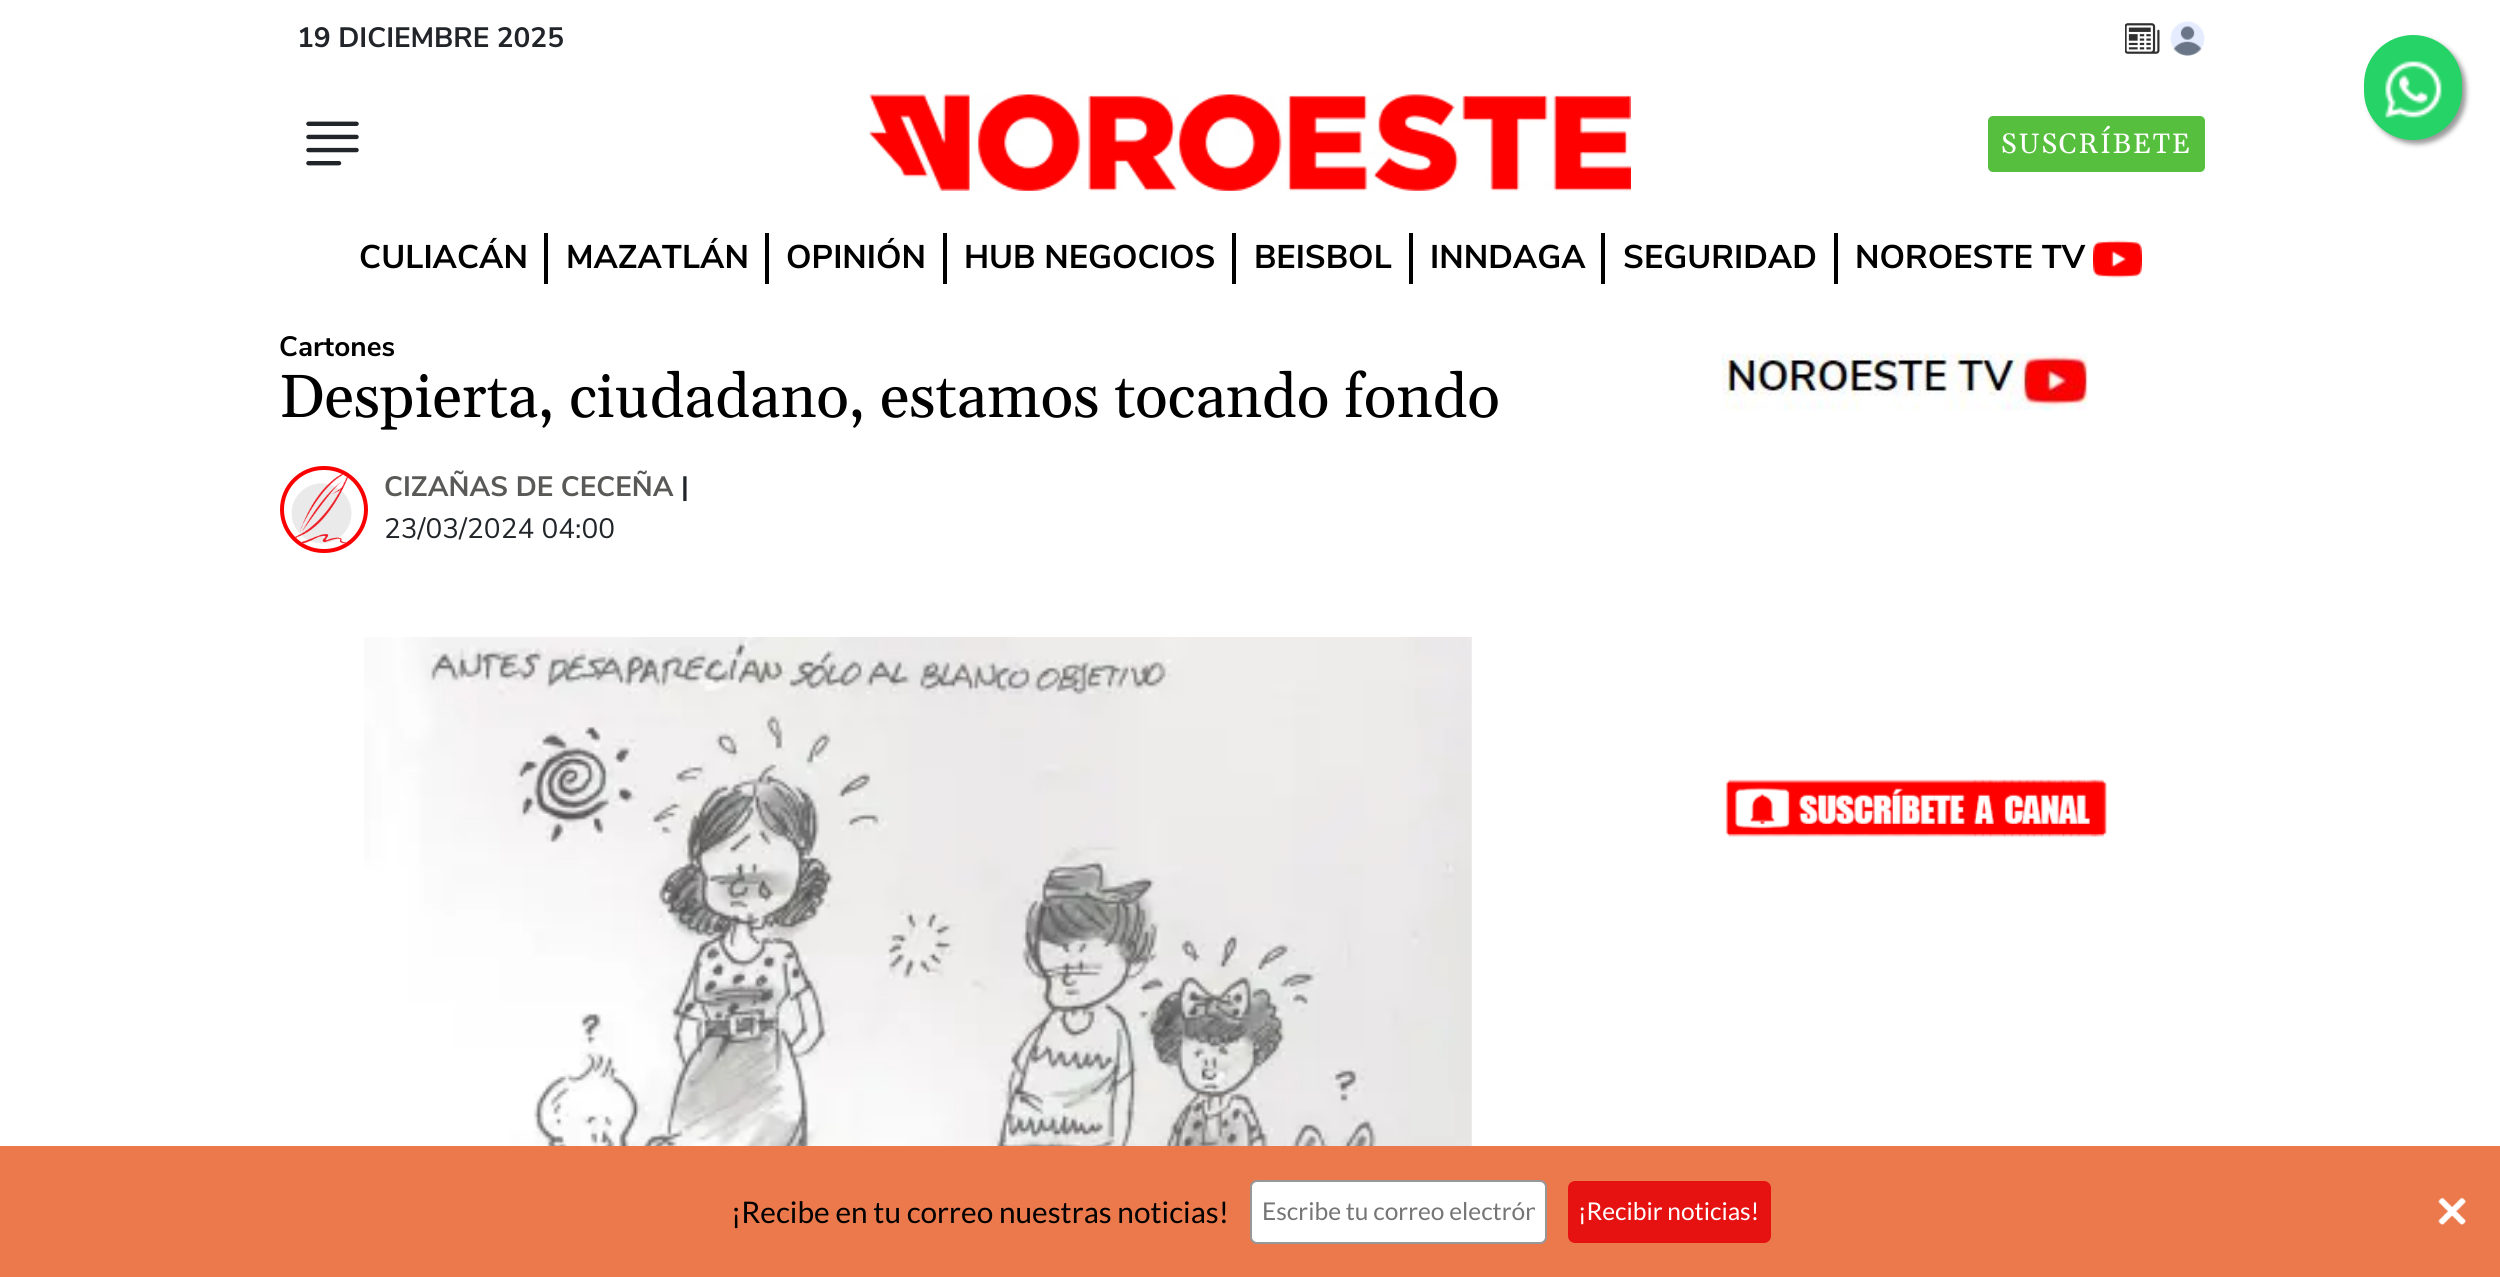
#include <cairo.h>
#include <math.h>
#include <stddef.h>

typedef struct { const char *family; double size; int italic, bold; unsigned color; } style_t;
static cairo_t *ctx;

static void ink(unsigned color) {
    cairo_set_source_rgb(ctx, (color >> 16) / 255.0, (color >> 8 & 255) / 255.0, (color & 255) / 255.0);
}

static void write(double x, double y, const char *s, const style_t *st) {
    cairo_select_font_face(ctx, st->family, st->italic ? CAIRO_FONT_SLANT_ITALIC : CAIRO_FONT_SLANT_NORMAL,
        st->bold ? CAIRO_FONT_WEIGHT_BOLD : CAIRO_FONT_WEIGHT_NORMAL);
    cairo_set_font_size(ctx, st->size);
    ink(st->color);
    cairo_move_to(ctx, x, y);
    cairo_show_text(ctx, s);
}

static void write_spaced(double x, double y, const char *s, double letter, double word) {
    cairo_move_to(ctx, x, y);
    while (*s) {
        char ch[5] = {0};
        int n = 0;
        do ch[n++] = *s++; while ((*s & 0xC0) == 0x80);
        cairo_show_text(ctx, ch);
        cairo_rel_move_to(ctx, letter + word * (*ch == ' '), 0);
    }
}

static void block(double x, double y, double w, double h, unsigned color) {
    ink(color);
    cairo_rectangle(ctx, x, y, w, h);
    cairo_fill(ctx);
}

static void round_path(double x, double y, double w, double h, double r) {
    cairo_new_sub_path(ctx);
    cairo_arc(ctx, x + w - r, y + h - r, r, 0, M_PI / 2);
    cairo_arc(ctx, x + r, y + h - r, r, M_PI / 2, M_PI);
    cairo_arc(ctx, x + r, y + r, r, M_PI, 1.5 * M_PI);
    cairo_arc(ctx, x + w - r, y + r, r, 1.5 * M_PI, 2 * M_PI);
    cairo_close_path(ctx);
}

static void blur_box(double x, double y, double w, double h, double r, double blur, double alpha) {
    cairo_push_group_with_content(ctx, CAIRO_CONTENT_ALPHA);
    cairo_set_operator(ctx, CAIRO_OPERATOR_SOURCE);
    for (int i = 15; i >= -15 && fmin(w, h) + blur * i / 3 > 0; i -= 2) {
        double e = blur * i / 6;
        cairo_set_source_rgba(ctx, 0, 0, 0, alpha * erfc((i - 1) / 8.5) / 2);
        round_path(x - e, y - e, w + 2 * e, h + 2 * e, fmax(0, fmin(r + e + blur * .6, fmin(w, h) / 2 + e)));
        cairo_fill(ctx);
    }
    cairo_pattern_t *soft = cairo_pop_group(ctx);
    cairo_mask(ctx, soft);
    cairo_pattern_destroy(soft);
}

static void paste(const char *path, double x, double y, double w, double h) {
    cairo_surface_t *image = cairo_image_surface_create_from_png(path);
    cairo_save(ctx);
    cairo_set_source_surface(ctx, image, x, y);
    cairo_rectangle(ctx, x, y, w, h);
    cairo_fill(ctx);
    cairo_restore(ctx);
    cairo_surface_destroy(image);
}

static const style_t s1 = {"Nunito Sans", 28, 0, 1, 0x212529};
static const style_t s2 = {"Nunito Sans", 32.75, 0, 1, 0x000000};
static const style_t s3 = {"Nunito Sans", 28, 0, 1, 0x000000};
static const style_t s4 = {"Gelasio", 60.7, 0, 0, 0x000000};
static const style_t s5 = {"Nunito Sans", 28, 0, 1, 0x595957};
static const style_t s6 = {"Nunito Sans", 28, 0, 0, 0x212529};
static const style_t s7 = {"Lato", 29.75, 0, 0, 0x000000};
static const style_t s8 = {"Lato", 24.5, 0, 0, 0x757575};
static const style_t s9 = {"Lato", 24.5, 0, 0, 0xffffff};

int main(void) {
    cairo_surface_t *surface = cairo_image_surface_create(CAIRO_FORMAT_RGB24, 2500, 1277);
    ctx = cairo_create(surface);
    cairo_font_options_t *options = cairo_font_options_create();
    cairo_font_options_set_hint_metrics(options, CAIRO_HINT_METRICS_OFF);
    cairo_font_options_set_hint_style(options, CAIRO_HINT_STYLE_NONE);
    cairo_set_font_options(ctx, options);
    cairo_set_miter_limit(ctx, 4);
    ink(0xffffff);
    cairo_paint(ctx);
    write(297, 47, "19 DICIEMBRE 2025", &s1);
    paste("pic1.png", 2125, 23, 35, 31);
    paste("pic2.png", 2170, 21, 35, 35);
    paste("pic3.png", 306, 121, 53, 45);
    paste("pic4.png", 869, 94, 762, 97);
    ink(0x56c03e);
    round_path(1988, 116, 217, 56, 5);
    cairo_fill(ctx);
    cairo_select_font_face(ctx, "Gelasio", CAIRO_FONT_SLANT_NORMAL, CAIRO_FONT_WEIGHT_NORMAL);
    ink(0xffffff);
    write_spaced(2001, 153, "SUSCRÍBETE", 1.75, 0);
    block(544, 233, 4, 51, 0x000000);
    write(359, 268, "CULIACÁN", &s2);
    block(765, 233, 4, 51, 0x000000);
    write(566, 268, "MAZATLÁN", &s2);
    block(943, 233, 4, 51, 0x000000);
    write(786, 268, "OPINIÓN", &s2);
    block(1232, 233, 4, 51, 0x000000);
    write(964, 268, "HUB NEGOCIOS", &s2);
    block(1409, 233, 4, 51, 0x000000);
    write(1254, 268, "BEISBOL", &s2);
    block(1601, 233, 4, 51, 0x000000);
    write(1430, 268, "INNDAGA", &s2);
    block(1834, 233, 4, 51, 0x000000);
    write(1623, 268, "SEGURIDAD", &s2);
    write(1855, 268, "NOROESTE TV", &s2);
    paste("pic5.png", 2093, 240, 49, 38);
    ink(0x999999);
    blur_box(2368, 39, 98, 105, 49, 2.5, 1);
    ink(0x25d366);
    round_path(2364, 35, 98, 105, 49);
    cairo_fill(ctx);
    paste("pic6.png", 2385, 61, 57, 57);
    write(279, 356, "Cartones", &s3);
    write(279, 417, "Despierta, ciudadano, estamos tocando fondo", &s4);
    round_path(282, 468, 84, 83, 41.5);
    ink(0xfa0000);
    cairo_set_line_width(ctx, 4);
    cairo_stroke(ctx);
    paste("pic7.png", 291, 473, 61, 71);
    write(384, 496, "CIZAÑAS DE CECEÑA", &s5);
    write(681, 496, "|", &s1);
    write(384, 538, "23/03/2024 04:00", &s6);
    paste("pic8.png", 364, 637, 1108, 509);
    paste("pic9.png", 1722, 352, 366, 59);
    paste("pic10.png", 1725, 779, 382, 58);
    block(0, 1146, 2500, 131, 0xeb794c);
    write(731, 1223, "¡Recibe en tu correo nuestras noticias!", &s7);
    ink(0xffffff);
    round_path(1251, 1181, 295, 62, 6);
    cairo_fill_preserve(ctx);
    ink(0x979797);
    cairo_set_line_width(ctx, 2);
    cairo_stroke(ctx);
    cairo_save(ctx);
    cairo_rectangle(ctx, 1262, 1195, 273, 30);
    cairo_clip(ctx);
    write(1262, 1220, "Escribe tu correo electrón", &s8);
    cairo_restore(ctx);
    ink(0xe61212);
    round_path(1568, 1181, 203, 62, 7);
    cairo_fill(ctx);
    write(1578, 1220, "¡Recibir noticias!", &s9);
    paste("pic11.png", 2438, 1197, 28, 28);
    cairo_surface_write_to_png(surface, "screenshot.png");
    cairo_font_options_destroy(options);
    cairo_destroy(ctx);
    cairo_surface_destroy(surface);
    return 0;
}
